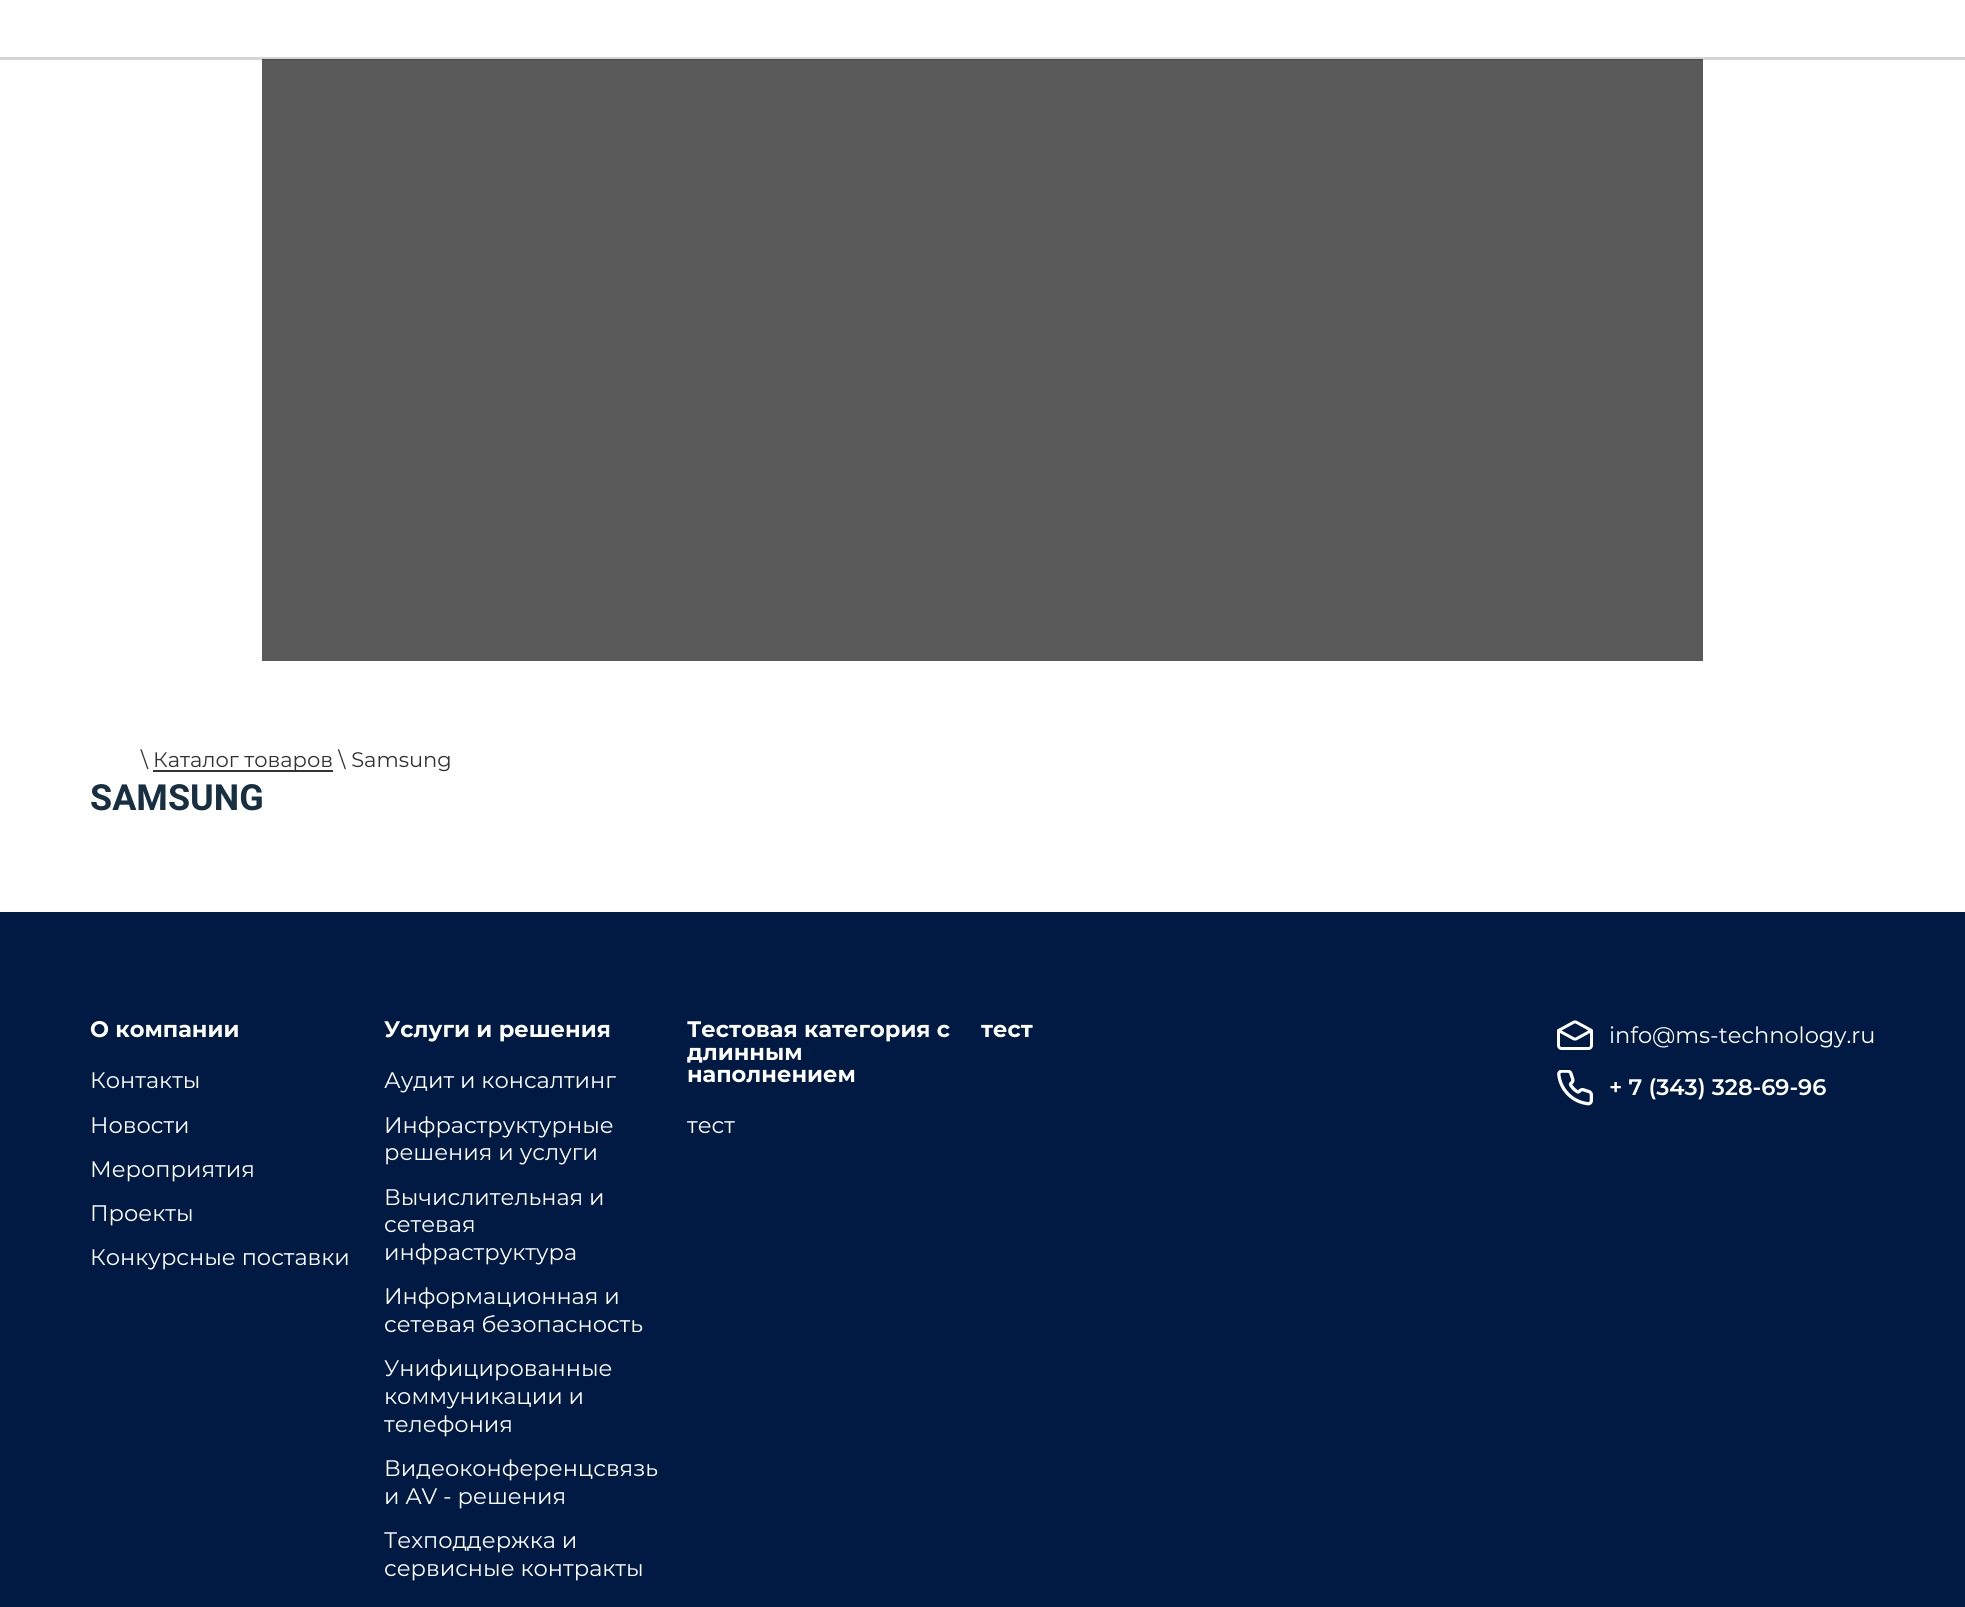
#include <cairo.h>
#include <math.h>
#include <stddef.h>

typedef struct { const char *family; double size; int italic, bold; unsigned color; } style_t;
static cairo_t *ctx;

static void ink(unsigned color) {
    cairo_set_source_rgb(ctx, (color >> 16) / 255.0, (color >> 8 & 255) / 255.0, (color & 255) / 255.0);
}

static void write(double x, double y, const char *s, const style_t *st) {
    cairo_select_font_face(ctx, st->family, st->italic ? CAIRO_FONT_SLANT_ITALIC : CAIRO_FONT_SLANT_NORMAL,
        st->bold ? CAIRO_FONT_WEIGHT_BOLD : CAIRO_FONT_WEIGHT_NORMAL);
    cairo_set_font_size(ctx, st->size);
    ink(st->color);
    cairo_move_to(ctx, x, y);
    cairo_show_text(ctx, s);
}

static void block(double x, double y, double w, double h, unsigned color) {
    ink(color);
    cairo_rectangle(ctx, x, y, w, h);
    cairo_fill(ctx);
}

static void paste(const char *path, double x, double y, double w, double h) {
    cairo_surface_t *image = cairo_image_surface_create_from_png(path);
    cairo_save(ctx);
    cairo_set_source_surface(ctx, image, x, y);
    cairo_rectangle(ctx, x, y, w, h);
    cairo_fill(ctx);
    cairo_restore(ctx);
    cairo_surface_destroy(image);
}

static const style_t s1 = {"Montserrat", 21, 0, 0, 0x333333};
static const style_t s2 = {"Roboto", 36, 0, 1, 0x172f40};
static const style_t s3 = {"Montserrat", 22.5, 0, 1, 0xffffff};
static const style_t s4 = {"Montserrat", 22.5, 0, 0, 0xffffff};
static const style_t s5 = {"Montserrat SemiBold", 22.5, 0, 0, 0xffffff};

int main(void) {
    cairo_surface_t *surface = cairo_image_surface_create(CAIRO_FORMAT_RGB24, 1965, 1607);
    ctx = cairo_create(surface);
    cairo_font_options_t *options = cairo_font_options_create();
    cairo_font_options_set_hint_metrics(options, CAIRO_HINT_METRICS_OFF);
    cairo_font_options_set_hint_style(options, CAIRO_HINT_STYLE_NONE);
    cairo_set_font_options(ctx, options);
    cairo_set_miter_limit(ctx, 4);
    ink(0xffffff);
    cairo_paint(ctx);
    block(262, 60, 1441, 601, 0x595959);
    block(0, 57, 1965, 3, 0xd4d4d4);
    block(262, 59, 1441, 1, 0x4a4a4a);
    write(141, 767, "\\", &s1);
    block(153, 770, 180, 2, 0x333333);
    write(153, 767, "Каталог товаров \\ Samsung", &s1);
    write(90, 810, "SAMSUNG", &s2);
    block(0, 912, 1965, 695, 0x001a44);
    write(90, 1037, "О компании", &s3);
    write(90, 1088, "Контакты", &s4);
    write(90, 1133, "Новости", &s4);
    write(90, 1177, "Мероприятия", &s4);
    write(90, 1221, "Проекты", &s4);
    write(90, 1265, "Конкурсные поставки", &s4);
    write(384, 1037, "Услуги и решения", &s3);
    write(384, 1088, "Аудит и консалтинг", &s4);
    write(384, 1133, "Инфраструктурные", &s4);
    write(384, 1160, "решения и услуги", &s4);
    write(384, 1205, "Вычислительная и", &s4);
    write(384, 1232, "сетевая", &s4);
    write(384, 1260, "инфраструктура", &s4);
    write(384, 1304, "Информационная и", &s4);
    write(384, 1332, "сетевая безопасность", &s4);
    write(384, 1376, "Унифицированные", &s4);
    write(384, 1404, "коммуникации и", &s4);
    write(384, 1432, "телефония", &s4);
    write(384, 1476, "Видеоконференцсвязь", &s4);
    write(384, 1504, "и AV - решения", &s4);
    write(384, 1548, "Техподдержка и", &s4);
    write(384, 1576, "сервисные контракты", &s4);
    write(687, 1037, "Тестовая категория с", &s3);
    write(687, 1060, "длинным", &s3);
    write(687, 1082, "наполнением", &s3);
    write(687, 1133, "тест", &s4);
    write(981, 1037, "тест", &s3);
    paste("pic1.png", 1557, 1020, 36, 30);
    write(1609, 1043, "info@ms-technology.ru", &s4);
    paste("pic2.png", 1557, 1070, 36, 36);
    write(1609, 1095, "+ 7 (343) 328-69-96", &s5);
    cairo_surface_write_to_png(surface, "screenshot.png");
    cairo_font_options_destroy(options);
    cairo_destroy(ctx);
    cairo_surface_destroy(surface);
    return 0;
}
